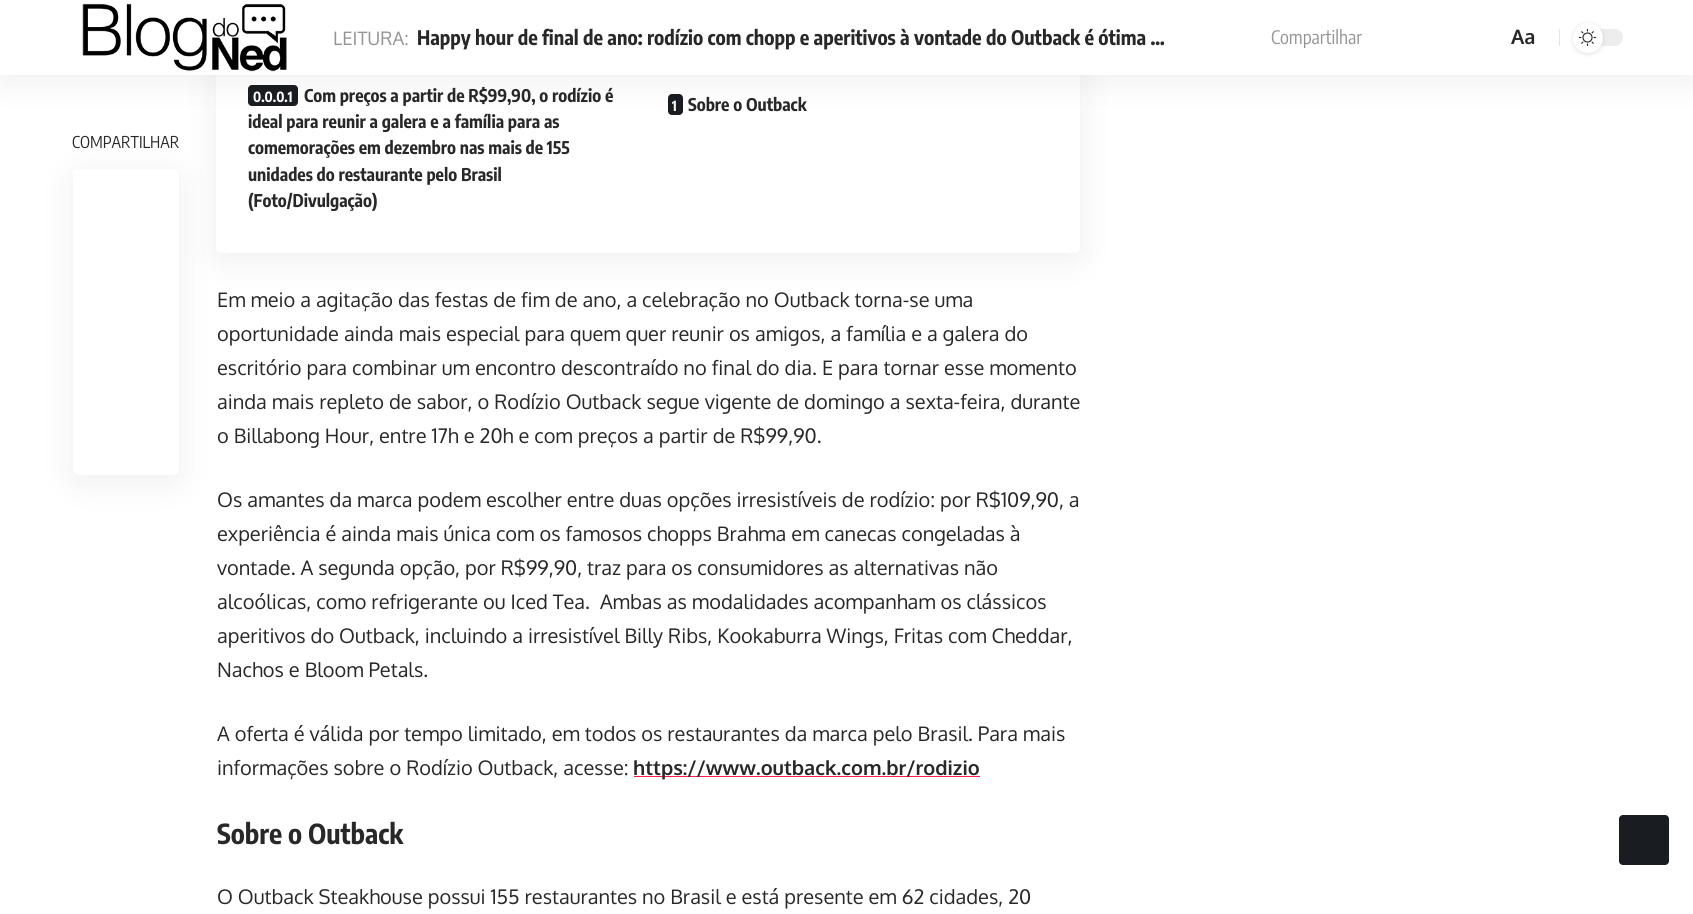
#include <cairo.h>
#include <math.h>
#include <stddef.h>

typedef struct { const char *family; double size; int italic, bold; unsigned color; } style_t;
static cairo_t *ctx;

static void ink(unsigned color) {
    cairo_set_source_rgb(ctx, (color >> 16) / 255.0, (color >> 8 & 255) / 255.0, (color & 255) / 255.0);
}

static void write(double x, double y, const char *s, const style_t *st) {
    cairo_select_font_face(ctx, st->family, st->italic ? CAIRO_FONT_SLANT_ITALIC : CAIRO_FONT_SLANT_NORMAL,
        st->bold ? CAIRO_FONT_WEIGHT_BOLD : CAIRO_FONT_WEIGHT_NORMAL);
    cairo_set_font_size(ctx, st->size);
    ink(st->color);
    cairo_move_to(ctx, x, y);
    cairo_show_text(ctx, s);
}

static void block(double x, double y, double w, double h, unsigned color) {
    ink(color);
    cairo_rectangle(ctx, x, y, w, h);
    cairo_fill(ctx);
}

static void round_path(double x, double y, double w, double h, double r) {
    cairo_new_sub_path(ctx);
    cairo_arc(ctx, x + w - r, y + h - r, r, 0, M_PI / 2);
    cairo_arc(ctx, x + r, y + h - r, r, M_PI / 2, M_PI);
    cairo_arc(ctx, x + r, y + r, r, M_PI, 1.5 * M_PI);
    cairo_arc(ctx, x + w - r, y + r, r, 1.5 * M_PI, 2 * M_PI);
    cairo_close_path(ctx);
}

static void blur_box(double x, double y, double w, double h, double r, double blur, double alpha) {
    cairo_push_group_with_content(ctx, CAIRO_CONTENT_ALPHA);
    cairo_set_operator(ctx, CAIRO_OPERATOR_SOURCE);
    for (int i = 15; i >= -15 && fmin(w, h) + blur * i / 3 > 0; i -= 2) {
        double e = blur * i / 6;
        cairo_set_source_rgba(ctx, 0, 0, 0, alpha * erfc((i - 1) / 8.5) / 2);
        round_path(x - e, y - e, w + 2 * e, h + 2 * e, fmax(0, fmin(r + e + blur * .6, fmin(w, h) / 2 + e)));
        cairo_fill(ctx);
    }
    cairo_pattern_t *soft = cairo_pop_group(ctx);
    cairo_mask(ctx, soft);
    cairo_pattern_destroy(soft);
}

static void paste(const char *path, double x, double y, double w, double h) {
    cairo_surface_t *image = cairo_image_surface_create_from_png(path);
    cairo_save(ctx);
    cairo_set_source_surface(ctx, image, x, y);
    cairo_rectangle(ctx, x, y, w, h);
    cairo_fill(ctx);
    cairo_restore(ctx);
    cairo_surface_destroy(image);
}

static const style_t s1 = {"Oxygen", 18.5, 0, 0, 0x949494};
static const style_t s2 = {"Encode Sans Condensed", 20, 0, 1, 0x282828};
static const style_t s3 = {"Encode Sans Condensed", 18.5, 0, 0, 0x949494};
static const style_t s4 = {"Oxygen", 20, 0, 1, 0x282828};
static const style_t s5 = {"Encode Sans Condensed", 16.25, 0, 0, 0x282828};
static const style_t s6 = {"Encode Sans Condensed", 14, 0, 1, 0xffffff};
static const style_t s7 = {"Encode Sans Condensed", 17.5, 0, 1, 0x282828};
static const style_t s8 = {"Oxygen", 20, 0, 0, 0x282828};
static const style_t s9 = {"Encode Sans Condensed", 27.5, 0, 1, 0x282828};

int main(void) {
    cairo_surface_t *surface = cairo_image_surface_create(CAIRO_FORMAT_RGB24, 1693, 914);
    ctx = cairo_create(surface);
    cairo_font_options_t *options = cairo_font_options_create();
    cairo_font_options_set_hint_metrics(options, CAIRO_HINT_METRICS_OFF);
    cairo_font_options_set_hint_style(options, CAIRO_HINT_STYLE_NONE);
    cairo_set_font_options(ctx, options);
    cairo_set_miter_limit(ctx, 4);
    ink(0xffffff);
    cairo_paint(ctx);
    cairo_save(ctx);
    cairo_set_fill_rule(ctx, CAIRO_FILL_RULE_EVEN_ODD);
    cairo_new_path(ctx);
    cairo_move_to(ctx, 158, 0);
    cairo_line_to(ctx, 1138, 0);
    cairo_line_to(ctx, 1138, 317);
    cairo_line_to(ctx, 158, 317);
    cairo_close_path(ctx);
    cairo_move_to(ctx, 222, -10);
    cairo_line_to(ctx, 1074, -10);
    cairo_curve_to(ctx, 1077.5, -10, 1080, -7.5, 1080, -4);
    cairo_line_to(ctx, 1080, 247);
    cairo_curve_to(ctx, 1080, 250.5, 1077.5, 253, 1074, 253);
    cairo_line_to(ctx, 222, 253);
    cairo_curve_to(ctx, 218.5, 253, 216, 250.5, 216, 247);
    cairo_line_to(ctx, 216, -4);
    cairo_curve_to(ctx, 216, -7.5, 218.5, -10, 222, -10);
    cairo_close_path(ctx);
    cairo_clip(ctx);
    ink(0x000000);
    blur_box(216, -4, 864, 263, 6, 19, 0.07);
    cairo_restore(ctx);
    ink(0x191c20);
    round_path(248, 85, 50, 21, 4);
    cairo_fill(ctx);
    round_path(668, 94, 15, 21, 4);
    cairo_fill(ctx);
    ink(0x000000);
    blur_box(0, 5, 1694, 75, 0, 19, 0.07);
    block(0, 0, 1693, 75, 0xffffff);
    paste("pic1.png", 82, 3, 205, 69);
    write(333, 45, "LEITURA:", &s1);
    write(417, 45, "Happy hour de final de ano: rodízio com chopp e aperitivos à vontade do Outback é ótima …", &s2);
    write(1271, 44, "Compartilhar", &s3);
    write(1511, 44, "Aa", &s4);
    block(1559, 29, 1, 17, 0xe4e4e4);
    ink(0xededed);
    round_path(1573, 29, 50, 17, 8.5);
    cairo_fill(ctx);
    ink(0x000000);
    blur_box(1573, 24, 30, 30, 15, 2.5, 0.12);
    ink(0xffffff);
    cairo_arc(ctx, 1588, 38, 15, 0, 2 * M_PI);
    cairo_fill(ctx);
    paste("pic2.png", 1579, 29, 17, 17);
    cairo_save(ctx);
    cairo_set_fill_rule(ctx, CAIRO_FILL_RULE_EVEN_ODD);
    cairo_new_path(ctx);
    cairo_move_to(ctx, 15, 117);
    cairo_line_to(ctx, 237, 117);
    cairo_line_to(ctx, 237, 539);
    cairo_line_to(ctx, 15, 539);
    cairo_close_path(ctx);
    cairo_move_to(ctx, 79, 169);
    cairo_line_to(ctx, 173, 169);
    cairo_curve_to(ctx, 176.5, 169, 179, 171.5, 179, 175);
    cairo_line_to(ctx, 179, 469);
    cairo_curve_to(ctx, 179, 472.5, 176.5, 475, 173, 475);
    cairo_line_to(ctx, 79, 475);
    cairo_curve_to(ctx, 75.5, 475, 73, 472.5, 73, 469);
    cairo_line_to(ctx, 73, 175);
    cairo_curve_to(ctx, 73, 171.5, 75.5, 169, 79, 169);
    cairo_close_path(ctx);
    cairo_clip(ctx);
    ink(0x000000);
    blur_box(73, 175, 106, 306, 6, 19, 0.07);
    cairo_restore(ctx);
    write(72, 148, "COMPARTILHAR", &s5);
    write(253, 102, "0.0.0.1", &s6);
    write(304, 102, "Com preços a partir de R$99,90, o rodízio é", &s7);
    write(248, 128, "ideal para reunir a galera e a família para as", &s7);
    write(248, 154, "comemorações em dezembro nas mais de 155", &s7);
    write(248, 181, "unidades do restaurante pelo Brasil", &s7);
    write(248, 207, "(Foto/Divulgação)", &s7);
    write(672, 111, "1", &s6);
    write(688, 111, "Sobre o Outback", &s7);
    write(217, 307, "Em meio a agitação das festas de fim de ano, a celebração no Outback torna-se uma", &s8);
    write(217, 341, "oportunidade ainda mais especial para quem quer reunir os amigos, a família e a galera do", &s8);
    write(217, 375, "escritório para combinar um encontro descontraído no final do dia. E para tornar esse momento", &s8);
    write(217, 409, "ainda mais repleto de sabor, o Rodízio Outback segue vigente de domingo a sexta-feira, durante", &s8);
    write(217, 443, "o Billabong Hour, entre 17h e 20h e com preços a partir de R$99,90.", &s8);
    write(217, 507, "Os amantes da marca podem escolher entre duas opções irresistíveis de rodízio: por R$109,90, a", &s8);
    write(217, 541, "experiência é ainda mais única com os famosos chopps Brahma em canecas congeladas à", &s8);
    write(217, 575, "vontade. A segunda opção, por R$99,90, traz para os consumidores as alternativas não", &s8);
    write(217, 609, "alcoólicas, como refrigerante ou Iced Tea.  Ambas as modalidades acompanham os clássicos", &s8);
    write(217, 643, "aperitivos do Outback, incluindo a irresistível Billy Ribs, Kookaburra Wings, Fritas com Cheddar,", &s8);
    write(217, 677, "Nachos e Bloom Petals.", &s8);
    write(217, 741, "A oferta é válida por tempo limitado, em todos os restaurantes da marca pelo Brasil. Para mais", &s8);
    write(217, 775, "informações sobre o Rodízio Outback, acesse:", &s8);
    block(634, 776, 346, 1, 0xff184e);
    write(633, 775, "https://www.outback.com.br/rodizio", &s4);
    write(217, 844, "Sobre o Outback", &s9);
    write(217, 904, "O Outback Steakhouse possui 155 restaurantes no Brasil e está presente em 62 cidades, 20", &s8);
    ink(0x191c20);
    round_path(1619, 815, 50, 50, 4);
    cairo_fill(ctx);
    cairo_surface_write_to_png(surface, "screenshot.png");
    cairo_font_options_destroy(options);
    cairo_destroy(ctx);
    cairo_surface_destroy(surface);
    return 0;
}
